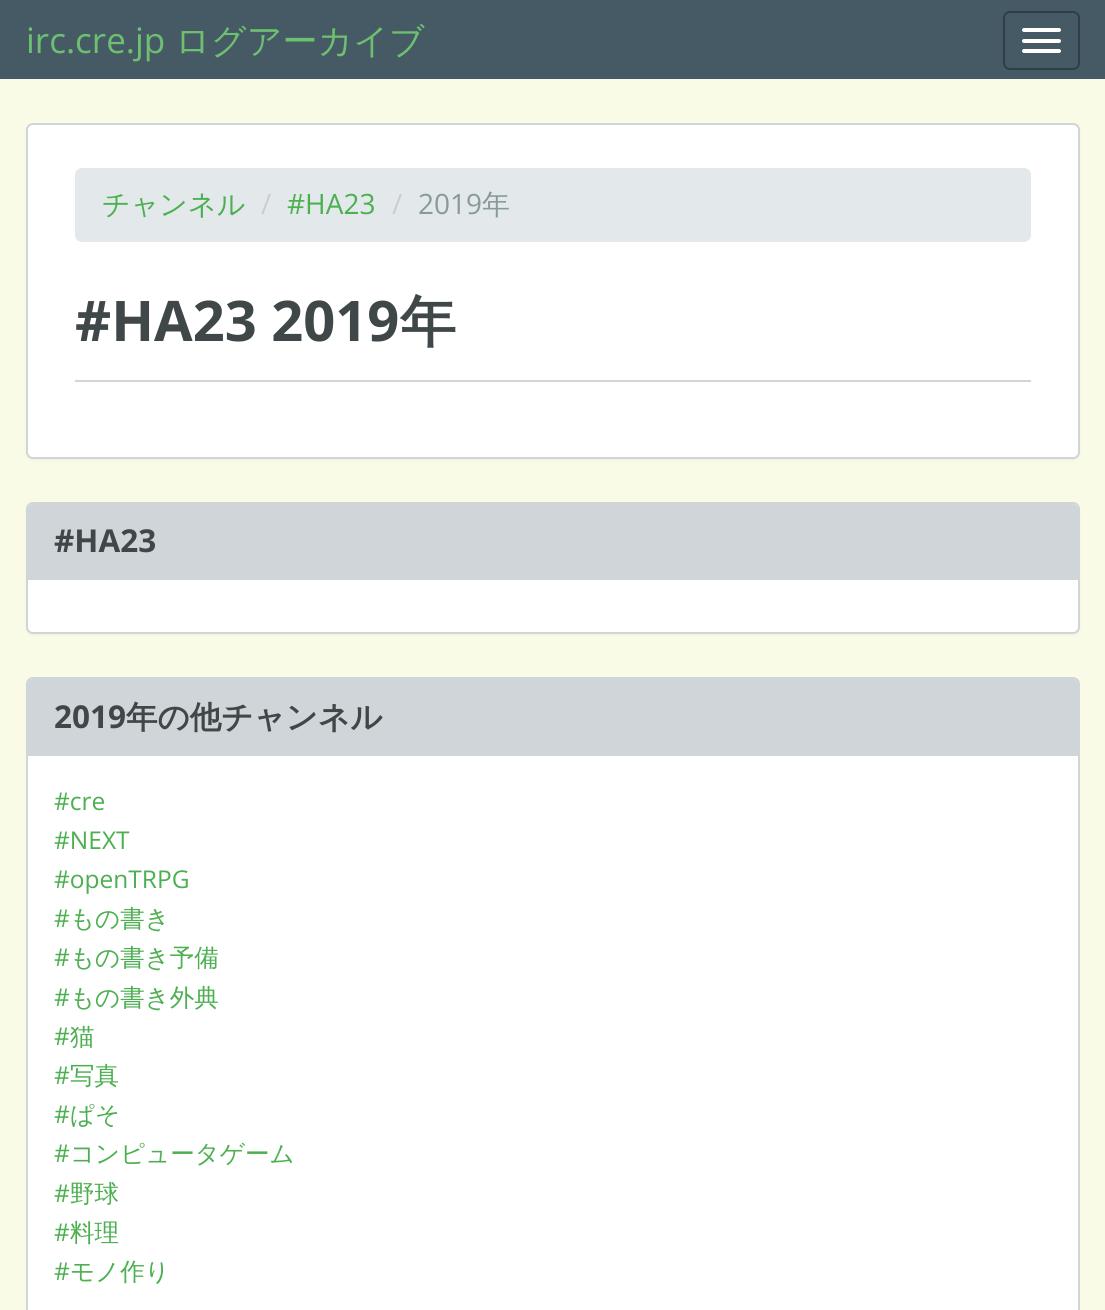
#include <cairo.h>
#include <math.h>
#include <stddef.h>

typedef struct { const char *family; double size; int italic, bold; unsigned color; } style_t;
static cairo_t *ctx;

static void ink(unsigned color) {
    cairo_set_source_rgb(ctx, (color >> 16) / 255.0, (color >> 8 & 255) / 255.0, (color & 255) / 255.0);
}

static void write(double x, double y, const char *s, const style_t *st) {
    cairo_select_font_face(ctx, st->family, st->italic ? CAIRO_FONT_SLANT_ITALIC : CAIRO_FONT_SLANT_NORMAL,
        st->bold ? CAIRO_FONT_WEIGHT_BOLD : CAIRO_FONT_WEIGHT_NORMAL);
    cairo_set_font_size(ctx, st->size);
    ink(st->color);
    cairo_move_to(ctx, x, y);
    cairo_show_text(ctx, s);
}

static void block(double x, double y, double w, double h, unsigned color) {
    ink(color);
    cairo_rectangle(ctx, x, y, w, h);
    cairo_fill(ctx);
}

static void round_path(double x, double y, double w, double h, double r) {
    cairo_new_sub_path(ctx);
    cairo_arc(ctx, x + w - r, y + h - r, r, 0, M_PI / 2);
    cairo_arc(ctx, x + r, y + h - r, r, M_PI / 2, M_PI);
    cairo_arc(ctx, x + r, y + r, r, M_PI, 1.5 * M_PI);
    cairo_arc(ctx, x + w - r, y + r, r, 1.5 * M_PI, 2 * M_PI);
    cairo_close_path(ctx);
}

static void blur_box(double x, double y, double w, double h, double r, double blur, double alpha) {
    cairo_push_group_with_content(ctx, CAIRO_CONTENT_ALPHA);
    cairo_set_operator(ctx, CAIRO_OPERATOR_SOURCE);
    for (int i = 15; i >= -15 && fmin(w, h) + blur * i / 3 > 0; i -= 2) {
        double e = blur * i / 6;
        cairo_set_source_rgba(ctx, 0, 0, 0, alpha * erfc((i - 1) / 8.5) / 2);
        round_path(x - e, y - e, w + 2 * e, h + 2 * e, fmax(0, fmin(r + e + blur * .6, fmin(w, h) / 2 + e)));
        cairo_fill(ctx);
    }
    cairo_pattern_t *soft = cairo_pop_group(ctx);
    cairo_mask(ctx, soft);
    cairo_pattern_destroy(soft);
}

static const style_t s1 = {"Open Sans", 35, 0, 0, 0x6ec071};
static const style_t s2 = {"WenQuanYi Zen Hei Medium", 35, 0, 0, 0x6ec071};
static const style_t s3 = {"WenQuanYi Zen Hei Medium", 28, 0, 0, 0x4caf50};
static const style_t s4 = {"Open Sans", 28, 0, 0, 0xcccccc};
static const style_t s5 = {"Open Sans", 28, 0, 0, 0x4caf50};
static const style_t s6 = {"Open Sans", 28, 0, 0, 0x87999a};
static const style_t s7 = {"WenQuanYi Zen Hei Medium", 28, 0, 0, 0x87999a};
static const style_t s8 = {"Open Sans", 56, 0, 1, 0x3f4748};
static const style_t s9 = {"WenQuanYi Zen Hei", 56, 0, 1, 0x3f4748};
static const style_t s10 = {"Open Sans", 31.5, 0, 1, 0x3f4748};
static const style_t s11 = {"WenQuanYi Zen Hei", 31.5, 0, 1, 0x3f4748};
static const style_t s12 = {"Open Sans", 24.5, 0, 0, 0x4caf50};
static const style_t s13 = {"WenQuanYi Zen Hei Medium", 24.5, 0, 0, 0x4caf50};

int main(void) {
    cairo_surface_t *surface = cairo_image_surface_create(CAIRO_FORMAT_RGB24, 1105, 1310);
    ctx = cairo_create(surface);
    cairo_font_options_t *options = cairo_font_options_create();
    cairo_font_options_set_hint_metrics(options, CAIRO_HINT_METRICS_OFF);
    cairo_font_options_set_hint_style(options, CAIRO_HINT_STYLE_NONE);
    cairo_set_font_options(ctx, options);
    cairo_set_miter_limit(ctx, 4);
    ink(0xf9fbe7);
    cairo_paint(ctx);
    block(0, 0, 1105, 79, 0x455a64);
    write(26, 53, "irc.cre.jp", &s1);
    write(175, 53, "ログアーカイブ", &s2);
    round_path(1004, 12, 75, 57, 6);
    ink(0x303f46);
    cairo_stroke(ctx);
    ink(0xffffff);
    round_path(1022, 28, 39, 4, 2);
    cairo_fill(ctx);
    round_path(1022, 39, 39, 4, 2);
    cairo_fill(ctx);
    round_path(1022, 49, 39, 4, 2);
    cairo_fill(ctx);
    ink(0x000000);
    blur_box(26, 124, 1054, 336, 7, 1, 0.05);
    ink(0xffffff);
    round_path(27, 124, 1052, 334, 6);
    cairo_fill_preserve(ctx);
    ink(0xd0d5d9);
    cairo_stroke(ctx);
    ink(0xe3e9eb);
    round_path(75, 168, 956, 74, 7);
    cairo_fill(ctx);
    write(102, 214, "チャンネル", &s3);
    write(261, 214, "/", &s4);
    write(287, 214, "#HA23", &s5);
    write(392, 214, "/", &s4);
    write(418, 214, "2019", &s6);
    write(482, 214, "年", &s7);
    block(75, 380, 956, 2, 0xd0d5d9);
    write(75, 341, "#HA23 2019", &s8);
    write(400, 341, "年", &s9);
    ink(0x000000);
    blur_box(26, 504, 1054, 131, 7, 1, 0.05);
    ink(0xffffff);
    round_path(27, 503, 1052, 130, 6);
    cairo_fill_preserve(ctx);
    ink(0xd0d5d9);
    cairo_stroke(ctx);
    cairo_new_path(ctx);
    cairo_move_to(ctx, 33, 504);
    cairo_line_to(ctx, 1073, 504);
    cairo_curve_to(ctx, 1076, 504, 1078, 506, 1078, 509);
    cairo_line_to(ctx, 1078, 579);
    cairo_line_to(ctx, 28, 579);
    cairo_line_to(ctx, 28, 509);
    cairo_curve_to(ctx, 28, 506, 30, 504, 33, 504);
    cairo_close_path(ctx);
    cairo_fill(ctx);
    block(28, 579, 1050, 1, 0xd0d5d9);
    write(54, 552, "#HA23", &s10);
    ink(0xffffff);
    round_path(27, 678, 1052, 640, 6);
    cairo_fill_preserve(ctx);
    ink(0xd0d5d9);
    cairo_stroke(ctx);
    cairo_new_path(ctx);
    cairo_move_to(ctx, 33, 679);
    cairo_line_to(ctx, 1073, 679);
    cairo_curve_to(ctx, 1076, 679, 1078, 681, 1078, 684);
    cairo_line_to(ctx, 1078, 756);
    cairo_line_to(ctx, 28, 756);
    cairo_line_to(ctx, 28, 684);
    cairo_curve_to(ctx, 28, 681, 30, 679, 33, 679);
    cairo_close_path(ctx);
    cairo_fill(ctx);
    write(54, 728, "2019", &s10);
    write(126, 728, "年の他チャンネル", &s11);
    write(54, 810, "#cre", &s12);
    write(54, 849, "#NEXT", &s12);
    write(54, 888, "#openTRPG", &s12);
    write(54, 927, "#", &s12);
    write(70, 927, "もの書き", &s13);
    write(54, 966, "#", &s12);
    write(70, 966, "もの書き予備", &s13);
    write(54, 1006, "#", &s12);
    write(70, 1006, "もの書き外典", &s13);
    write(54, 1045, "#", &s12);
    write(70, 1045, "猫", &s13);
    write(54, 1084, "#", &s12);
    write(70, 1084, "写真", &s13);
    write(54, 1123, "#", &s12);
    write(70, 1123, "ぱそ", &s13);
    write(54, 1162, "#", &s12);
    write(70, 1162, "コンピュータゲーム", &s13);
    write(54, 1202, "#", &s12);
    write(70, 1202, "野球", &s13);
    write(54, 1241, "#", &s12);
    write(70, 1241, "料理", &s13);
    write(54, 1280, "#", &s12);
    write(70, 1280, "モノ作り", &s13);
    cairo_surface_write_to_png(surface, "screenshot.png");
    cairo_font_options_destroy(options);
    cairo_destroy(ctx);
    cairo_surface_destroy(surface);
    return 0;
}
